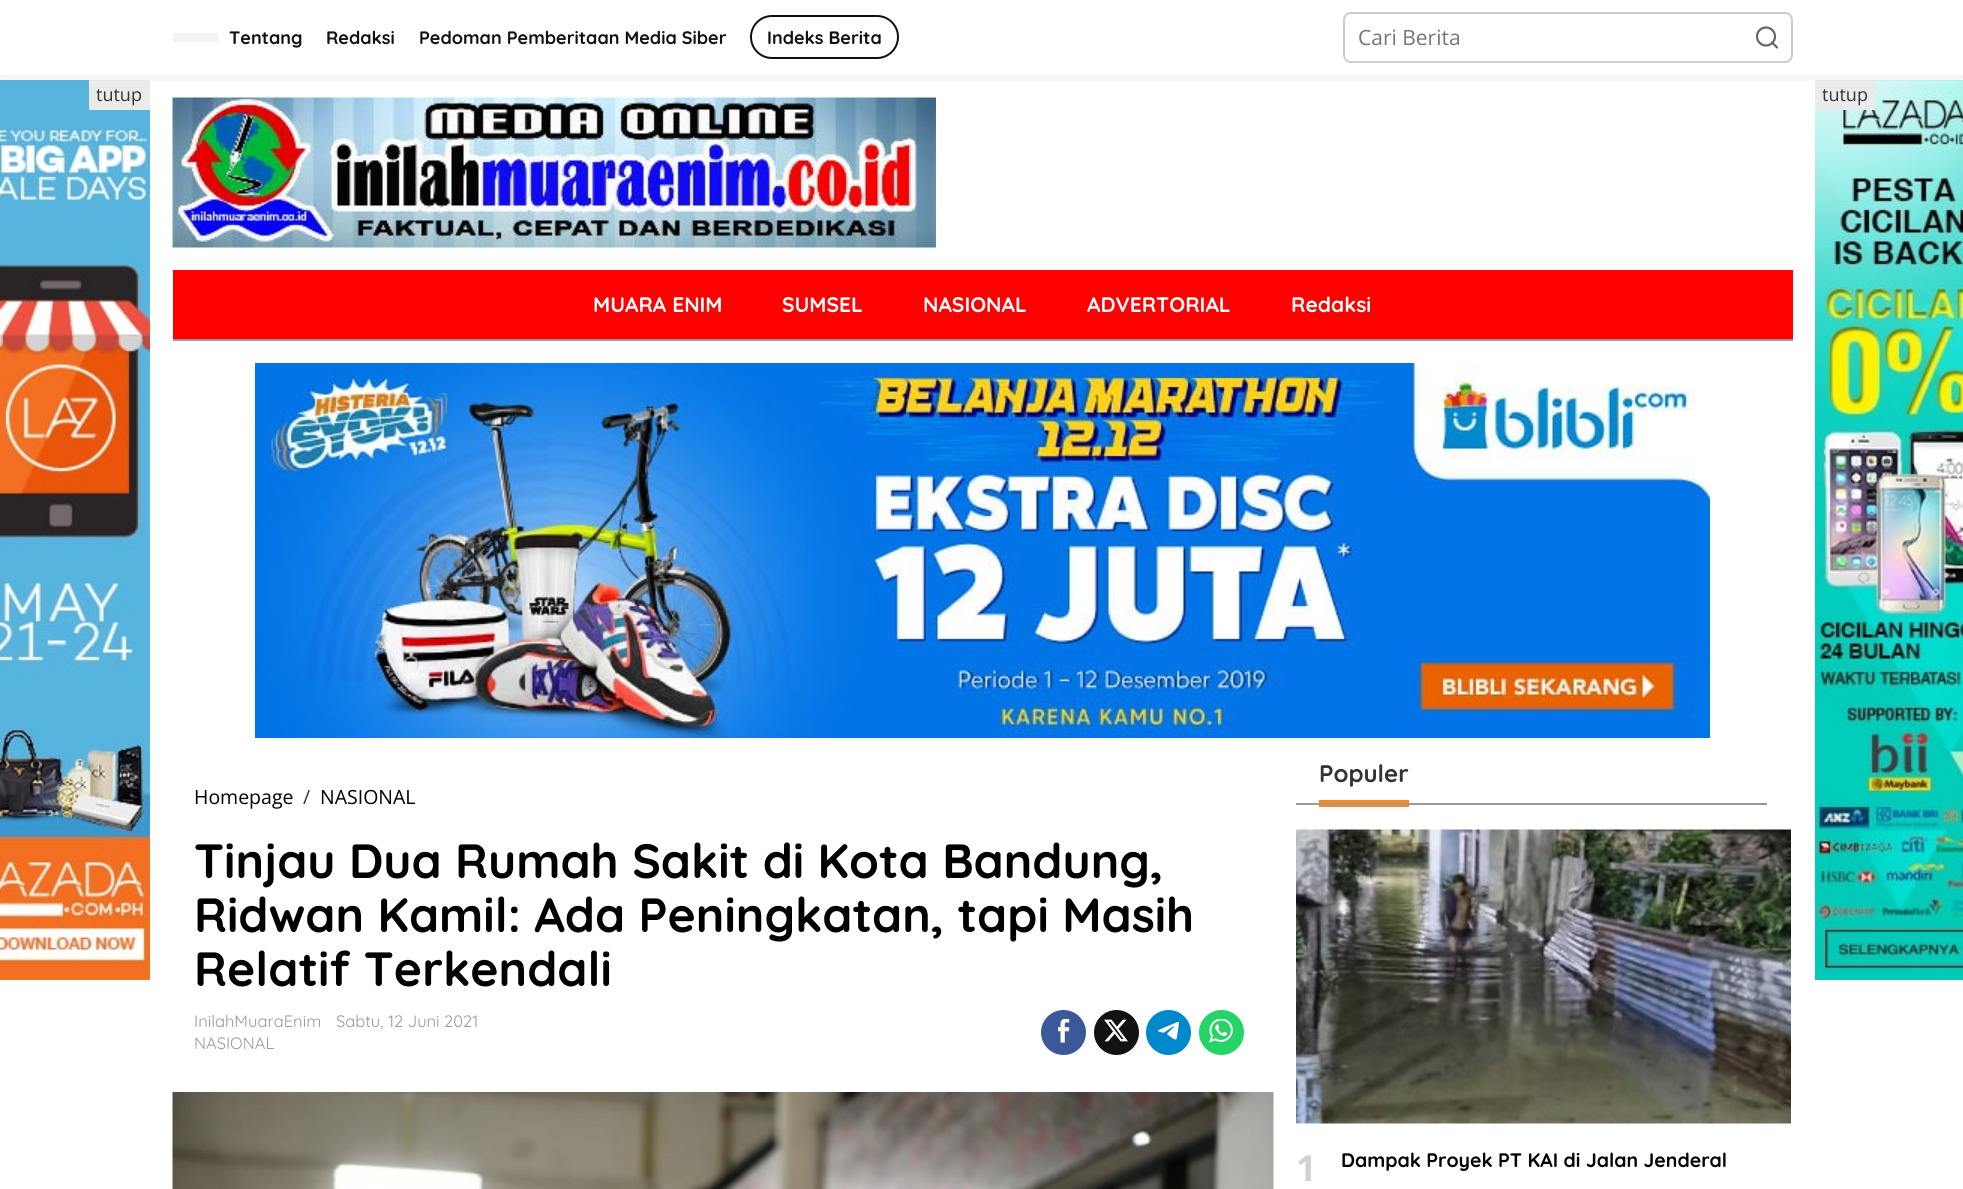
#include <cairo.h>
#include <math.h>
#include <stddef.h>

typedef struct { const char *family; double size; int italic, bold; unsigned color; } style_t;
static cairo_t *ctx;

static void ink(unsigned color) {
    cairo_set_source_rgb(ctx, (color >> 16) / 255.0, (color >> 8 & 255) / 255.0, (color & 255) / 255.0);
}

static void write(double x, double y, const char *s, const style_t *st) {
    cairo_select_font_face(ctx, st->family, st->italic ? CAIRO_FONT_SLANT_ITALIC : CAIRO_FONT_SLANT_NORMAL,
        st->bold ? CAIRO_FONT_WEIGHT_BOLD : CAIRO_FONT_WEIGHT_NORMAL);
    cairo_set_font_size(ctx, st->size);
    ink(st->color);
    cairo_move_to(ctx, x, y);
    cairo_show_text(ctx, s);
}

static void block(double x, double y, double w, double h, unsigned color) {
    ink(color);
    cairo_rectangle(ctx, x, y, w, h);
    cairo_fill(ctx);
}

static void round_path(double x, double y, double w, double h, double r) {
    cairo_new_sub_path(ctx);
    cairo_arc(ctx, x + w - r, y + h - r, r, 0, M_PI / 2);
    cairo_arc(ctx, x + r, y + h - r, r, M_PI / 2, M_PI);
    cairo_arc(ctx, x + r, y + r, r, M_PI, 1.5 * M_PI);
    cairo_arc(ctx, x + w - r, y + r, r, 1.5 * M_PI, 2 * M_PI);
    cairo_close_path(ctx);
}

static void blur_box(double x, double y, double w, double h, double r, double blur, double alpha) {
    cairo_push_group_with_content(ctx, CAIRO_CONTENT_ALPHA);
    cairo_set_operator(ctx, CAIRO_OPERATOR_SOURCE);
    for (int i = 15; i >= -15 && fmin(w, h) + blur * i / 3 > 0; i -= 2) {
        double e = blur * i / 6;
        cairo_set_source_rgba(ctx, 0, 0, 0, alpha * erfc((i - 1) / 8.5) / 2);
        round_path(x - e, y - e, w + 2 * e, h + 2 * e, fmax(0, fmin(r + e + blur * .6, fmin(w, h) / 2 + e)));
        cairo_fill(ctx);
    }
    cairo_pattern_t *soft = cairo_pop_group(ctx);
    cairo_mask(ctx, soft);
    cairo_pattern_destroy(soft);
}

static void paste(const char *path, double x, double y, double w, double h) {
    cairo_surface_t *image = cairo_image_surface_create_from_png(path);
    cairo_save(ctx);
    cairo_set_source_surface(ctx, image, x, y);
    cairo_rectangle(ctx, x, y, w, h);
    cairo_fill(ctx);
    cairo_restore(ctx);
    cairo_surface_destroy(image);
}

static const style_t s1 = {"Quicksand", 18, 0, 1, 0x111111};
static const style_t s2 = {"Open Sans", 21, 0, 0, 0x757575};
static const style_t s3 = {"Open Sans", 18, 0, 0, 0x333333};
static const style_t s4 = {"Open Sans", 19.5, 0, 0, 0x000000};
static const style_t s5 = {"Open Sans", 19.5, 0, 0, 0x333333};
static const style_t s6 = {"Quicksand", 48, 0, 1, 0x000000};
static const style_t s7 = {"Quicksand", 16.5, 0, 0, 0x999999};
static const style_t s8 = {"Quicksand", 24, 0, 1, 0x333333};
static const style_t s9 = {"Open Sans", 36, 0, 1, 0xd1d1d1};
static const style_t s10 = {"Quicksand", 19.5, 0, 1, 0x000000};
static const style_t s11 = {"Quicksand", 21, 0, 1, 0xffffff};

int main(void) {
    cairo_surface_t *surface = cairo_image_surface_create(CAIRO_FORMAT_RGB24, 1963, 1189);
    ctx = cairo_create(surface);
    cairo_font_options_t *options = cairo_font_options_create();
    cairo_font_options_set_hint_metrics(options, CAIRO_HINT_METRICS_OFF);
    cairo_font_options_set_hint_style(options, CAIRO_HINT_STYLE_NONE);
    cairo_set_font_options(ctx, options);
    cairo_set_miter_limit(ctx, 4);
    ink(0xffffff);
    cairo_paint(ctx);
    paste("pic1.png", 0, 80, 150, 900);
    block(89, 80, 61, 30, 0xebebeb);
    paste("pic2.png", 1815, 80, 148, 900);
    block(1815, 80, 60, 30, 0xebebeb);
    paste("pic10.png", 172, 97, 764, 151);
    cairo_save(ctx);
    cairo_rectangle(ctx, 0, 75, 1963, 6);
    cairo_clip(ctx);
    ink(0x000000);
    blur_box(0, 0, 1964, 75, 0, 7.5, 0.1);
    cairo_restore(ctx);
    block(173, 33, 45, 9, 0xf2f2f2);
    write(229, 44, "Tentang", &s1);
    write(326, 44, "Redaksi", &s1);
    write(419, 44, "Pedoman Pemberitaan Media Siber", &s1);
    round_path(751, 16, 147, 42, 21);
    cairo_stroke(ctx);
    write(767, 44, "Indeks Berita", &s1);
    round_path(1344, 13, 448, 49, 7);
    ink(0xcccccc);
    cairo_stroke(ctx);
    write(1358, 45, "Cari Berita", &s2);
    cairo_new_path(ctx);
    cairo_arc(ctx, 1766, 36.5, 9, 0, 2 * M_PI);
    ink(0x666666);
    cairo_set_line_width(ctx, 2.2);
    cairo_stroke(ctx);
    cairo_new_path(ctx);
    cairo_move_to(ctx, 1777, 47.5);
    cairo_line_to(ctx, 1772, 42.5);
    cairo_set_line_cap(ctx, CAIRO_LINE_CAP_ROUND);
    cairo_set_line_join(ctx, CAIRO_LINE_JOIN_ROUND);
    cairo_stroke(ctx);
    write(96, 101, "tutup", &s3);
    write(1822, 101, "tutup", &s3);
    paste("pic3.png", 255, 363, 1455, 375);
    write(194, 804, "Homepage", &s4);
    write(303, 804, "/", &s5);
    write(320, 804, "NASIONAL", &s4);
    write(194, 878, "Tinjau Dua Rumah Sakit di Kota Bandung,", &s6);
    write(194, 932, "Ridwan Kamil: Ada Peningkatan, tapi Masih", &s6);
    write(194, 986, "Relatif Terkendali", &s6);
    write(194, 1027, "InilahMuaraEnim", &s7);
    write(336, 1027, "Sabtu, 12 Juni 2021", &s7);
    write(194, 1049, "NASIONAL", &s7);
    ink(0x3b5998);
    cairo_new_path(ctx);
    cairo_arc(ctx, 1063.5, 1032.5, 22.5, 0, 2 * M_PI);
    cairo_fill(ctx);
    paste("pic4.png", 1058, 1019, 12, 24);
    ink(0x121212);
    cairo_arc(ctx, 1116.5, 1032.5, 22.5, 0, 2 * M_PI);
    cairo_fill(ctx);
    paste("pic5.png", 1104, 1019, 24, 23);
    ink(0x0088cc);
    cairo_arc(ctx, 1168.5, 1032.5, 22.5, 0, 2 * M_PI);
    cairo_fill(ctx);
    paste("pic6.png", 1158, 1022, 21, 18);
    ink(0x25d366);
    cairo_arc(ctx, 1221.5, 1032.5, 22.5, 0, 2 * M_PI);
    cairo_fill(ctx);
    paste("pic7.png", 1209, 1019, 24, 24);
    paste("pic8.png", 172, 1092, 1102, 97);
    block(1319, 800, 90, 7, 0xfe8917);
    write(1319, 782, "Populer", &s8);
    block(1296, 803, 471, 2, 0x999999);
    paste("pic9.png", 1296, 829, 495, 295);
    write(1296, 1181, "1", &s9);
    write(1341, 1167, "Dampak Proyek PT KAI di Jalan Jenderal", &s10);
    block(173, 270, 1620, 69, 0xff0000);
    block(173, 339, 1620, 2, 0x999999);
    write(593, 312, "MUARA ENIM", &s11);
    write(782, 312, "SUMSEL", &s11);
    write(923, 312, "NASIONAL", &s11);
    write(1087, 312, "ADVERTORIAL", &s11);
    write(1291, 312, "Redaksi", &s11);
    cairo_surface_write_to_png(surface, "screenshot.png");
    cairo_font_options_destroy(options);
    cairo_destroy(ctx);
    cairo_surface_destroy(surface);
    return 0;
}
